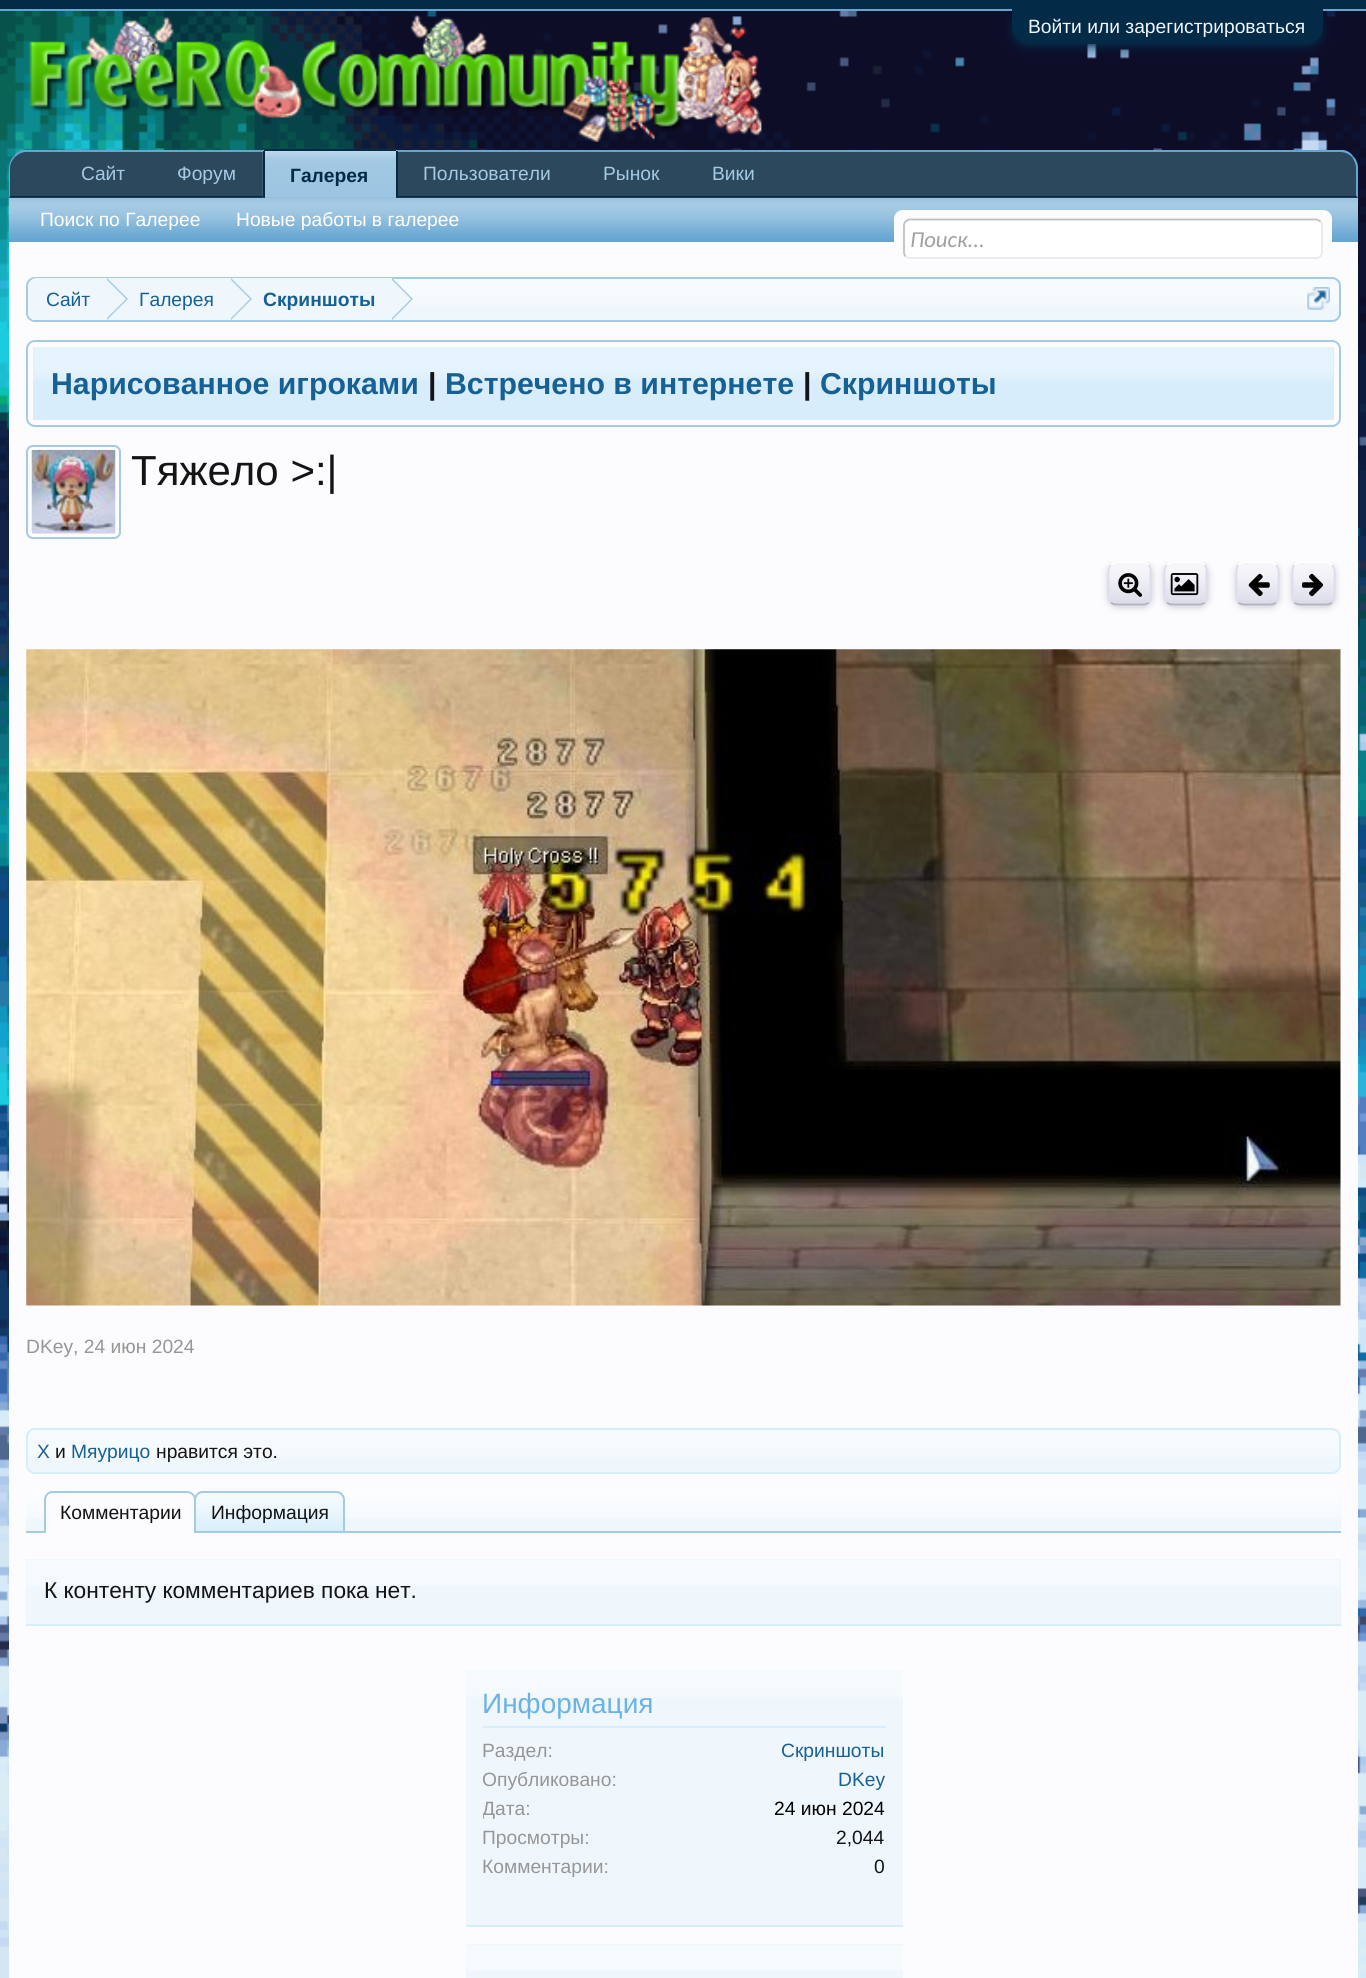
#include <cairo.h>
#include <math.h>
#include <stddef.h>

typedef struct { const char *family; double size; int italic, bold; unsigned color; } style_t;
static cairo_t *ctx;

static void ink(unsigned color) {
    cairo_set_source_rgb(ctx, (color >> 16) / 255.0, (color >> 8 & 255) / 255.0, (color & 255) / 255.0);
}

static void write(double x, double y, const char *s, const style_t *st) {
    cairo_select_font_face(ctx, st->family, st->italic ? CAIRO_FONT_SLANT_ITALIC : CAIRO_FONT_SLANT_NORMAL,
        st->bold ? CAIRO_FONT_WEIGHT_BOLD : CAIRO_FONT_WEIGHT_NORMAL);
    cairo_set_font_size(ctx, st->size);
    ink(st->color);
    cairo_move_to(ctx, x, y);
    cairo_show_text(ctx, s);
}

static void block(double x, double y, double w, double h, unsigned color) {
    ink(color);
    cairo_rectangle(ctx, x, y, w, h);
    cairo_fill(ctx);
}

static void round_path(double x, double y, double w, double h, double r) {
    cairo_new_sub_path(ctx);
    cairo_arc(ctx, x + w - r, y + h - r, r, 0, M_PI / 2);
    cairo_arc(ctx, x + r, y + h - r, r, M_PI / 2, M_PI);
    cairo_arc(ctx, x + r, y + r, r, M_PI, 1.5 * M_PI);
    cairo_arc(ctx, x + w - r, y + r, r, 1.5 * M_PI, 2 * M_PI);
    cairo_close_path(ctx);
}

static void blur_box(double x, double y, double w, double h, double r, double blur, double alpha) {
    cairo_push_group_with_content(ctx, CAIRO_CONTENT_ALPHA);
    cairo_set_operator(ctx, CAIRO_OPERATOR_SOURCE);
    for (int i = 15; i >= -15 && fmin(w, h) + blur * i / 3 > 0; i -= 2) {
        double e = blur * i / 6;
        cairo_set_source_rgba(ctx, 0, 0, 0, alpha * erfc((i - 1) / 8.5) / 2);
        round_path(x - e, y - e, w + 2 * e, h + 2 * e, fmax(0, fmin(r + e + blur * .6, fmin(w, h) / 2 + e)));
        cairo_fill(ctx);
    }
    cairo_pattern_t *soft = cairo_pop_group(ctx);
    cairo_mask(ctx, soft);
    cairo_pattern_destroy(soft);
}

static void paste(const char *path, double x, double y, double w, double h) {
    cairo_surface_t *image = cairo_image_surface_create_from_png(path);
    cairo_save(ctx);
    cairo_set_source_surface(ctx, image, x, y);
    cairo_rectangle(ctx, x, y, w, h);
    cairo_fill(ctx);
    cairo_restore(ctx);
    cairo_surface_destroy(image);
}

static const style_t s1 = {"Liberation Sans", 19.25, 0, 0, 0xf0f7fc};
static const style_t s2 = {"Liberation Sans", 19.25, 0, 0, 0xa5cae4};
static const style_t s3 = {"Liberation Sans", 19.25, 0, 1, 0x032a46};
static const style_t s4 = {"Liberation Sans", 19.25, 0, 0, 0xffffff};
static const style_t s5 = {"Carlito", 22.75, 1, 0, 0xa0a0a0};
static const style_t s6 = {"Liberation Sans", 19.25, 0, 0, 0x176093};
static const style_t s7 = {"Liberation Sans", 19.25, 0, 1, 0x176093};
static const style_t s8 = {"Liberation Sans", 30.25, 0, 1, 0x176093};
static const style_t s9 = {"Liberation Sans", 30.25, 0, 1, 0x141414};
static const style_t s10 = {"Liberation Sans", 42, 0, 0, 0x141414};
static const style_t s11 = {"Liberation Sans", 19.25, 0, 0, 0x969696};
static const style_t s12 = {"Liberation Sans", 19.25, 0, 0, 0x141414};
static const style_t s13 = {"Liberation Sans", 22.75, 0, 0, 0x141414};
static const style_t s14 = {"Liberation Sans", 28, 0, 0, 0x6cb2e4};
static const style_t s15 = {"Liberation Sans", 19.25, 0, 0, 0x000000};

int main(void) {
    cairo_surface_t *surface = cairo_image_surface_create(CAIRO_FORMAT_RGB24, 1366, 1978);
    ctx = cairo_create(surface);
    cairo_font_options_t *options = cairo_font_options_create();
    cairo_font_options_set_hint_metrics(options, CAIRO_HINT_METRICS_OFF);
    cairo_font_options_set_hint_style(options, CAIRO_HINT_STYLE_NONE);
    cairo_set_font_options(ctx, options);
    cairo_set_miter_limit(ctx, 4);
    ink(0xffffff);
    cairo_paint(ctx);
    paste("pic1.png", 0, 11, 1366, 1967);
    block(0, 0, 1366, 9, 0x032a46);
    block(0, 9, 1366, 2, 0x65a5d1);
    ink(0x032a46);
    blur_box(1012, 12, 311, 35, 17.5, 4.5, 1);
    ink(0x032a46);
    cairo_new_path(ctx);
    cairo_move_to(ctx, 1012, 9);
    cairo_line_to(ctx, 1323, 9);
    cairo_line_to(ctx, 1323, 26.5);
    cairo_curve_to(ctx, 1323, 36, 1315, 44, 1305.5, 44);
    cairo_line_to(ctx, 1029.5, 44);
    cairo_curve_to(ctx, 1020, 44, 1012, 36, 1012, 26.5);
    cairo_close_path(ctx);
    cairo_fill(ctx);
    write(1028, 33, "Войти или зарегистрироваться", &s1);
    paste("pic2.png", 29, 15, 733, 127);
    ink(0x2b485c);
    cairo_new_path(ctx);
    cairo_move_to(ctx, 27, 151);
    cairo_line_to(ctx, 1340, 151);
    cairo_curve_to(ctx, 1350, 151, 1358, 159, 1358, 169);
    cairo_line_to(ctx, 1358, 198);
    cairo_line_to(ctx, 9, 198);
    cairo_line_to(ctx, 9, 169);
    cairo_curve_to(ctx, 9, 159, 17, 151, 27, 151);
    cairo_close_path(ctx);
    cairo_fill(ctx);
    ink(0x65a5d1);
    cairo_new_path(ctx);
    cairo_move_to(ctx, 26, 152);
    cairo_curve_to(ctx, 22, 152, 18, 154, 15, 157);
    cairo_line_to(ctx, 14, 156);
    cairo_curve_to(ctx, 16, 153, 19, 151, 22, 150);
    cairo_line_to(ctx, 1344, 150);
    cairo_curve_to(ctx, 1348, 151, 1351, 153, 1353, 156);
    cairo_line_to(ctx, 1352, 157);
    cairo_curve_to(ctx, 1349, 154, 1345, 152, 1340, 152);
    cairo_close_path(ctx);
    cairo_fill(ctx);
    cairo_new_path(ctx);
    cairo_move_to(ctx, 1358, 198);
    cairo_line_to(ctx, 1358, 168);
    cairo_curve_to(ctx, 1358, 163, 1356, 159, 1353, 156);
    cairo_line_to(ctx, 1352, 157);
    cairo_curve_to(ctx, 1354, 160, 1356, 164, 1356, 168);
    cairo_line_to(ctx, 1356, 196);
    cairo_close_path(ctx);
    cairo_fill(ctx);
    ink(0x032a46);
    cairo_new_path(ctx);
    cairo_move_to(ctx, 1358, 198);
    cairo_line_to(ctx, 9, 198);
    cairo_line_to(ctx, 10, 196);
    cairo_line_to(ctx, 1356, 196);
    cairo_close_path(ctx);
    cairo_fill(ctx);
    ink(0x65a5d1);
    cairo_new_path(ctx);
    cairo_move_to(ctx, 9, 198);
    cairo_line_to(ctx, 9, 168);
    cairo_curve_to(ctx, 9, 163, 11, 159, 14, 156);
    cairo_line_to(ctx, 15, 157);
    cairo_curve_to(ctx, 12, 160, 10, 164, 10, 168);
    cairo_line_to(ctx, 10, 196);
    cairo_close_path(ctx);
    cairo_fill(ctx);
    write(81, 180, "Сайт", &s2);
    write(177, 180, "Форум", &s2);
    write(423, 180, "Пользователи", &s2);
    write(603, 180, "Рынок", &s2);
    write(712, 180, "Вики", &s2);
    ink(0x65a5d1);
    cairo_new_path(ctx);
    cairo_move_to(ctx, 267, 149);
    cairo_line_to(ctx, 393, 149);
    cairo_curve_to(ctx, 395, 149, 397, 151, 397, 153);
    cairo_line_to(ctx, 397, 198);
    cairo_line_to(ctx, 263, 198);
    cairo_line_to(ctx, 263, 153);
    cairo_curve_to(ctx, 263, 151, 265, 149, 267, 149);
    cairo_close_path(ctx);
    cairo_fill(ctx);
    paste("pic3.png", 262, 150, 135, 48);
    block(264, 149, 132, 2, 0x032a46);
    block(396, 151, 2, 47, 0x032a46);
    block(263, 151, 2, 47, 0x032a46);
    write(290, 182, "Галерея", &s3);
    block(9, 198, 1349, 44, 0x65a5d1);
    paste("pic4.png", 8, 197, 1350, 42);
    write(40, 226, "Поиск по Галерее", &s4);
    write(236, 226, "Новые работы в галерее", &s4);
    block(9, 242, 1349, 1736, 0xfcfcff);
    round_path(894, 210, 438, 49, 9);
    cairo_fill(ctx);
    ink(0xffffff);
    round_path(903, 219, 420, 40, 7);
    cairo_fill(ctx);
    cairo_new_path(ctx);
    cairo_move_to(ctx, 1320.5, 221.5);
    cairo_curve_to(ctx, 1321.5, 222.5, 1322, 224, 1322, 226);
    cairo_line_to(ctx, 1322, 252);
    cairo_curve_to(ctx, 1322, 253.5, 1321.5, 255, 1320.5, 256.5);
    cairo_curve_to(ctx, 1319, 257.5, 1317.5, 258, 1316, 258);
    cairo_line_to(ctx, 910, 258);
    cairo_curve_to(ctx, 908.5, 258, 907, 257.5, 905.5, 256.5);
    ink(0xe9e9e9);
    cairo_set_line_width(ctx, 1.8);
    cairo_stroke(ctx);
    cairo_new_path(ctx);
    cairo_move_to(ctx, 905.5, 256.5);
    cairo_curve_to(ctx, 904.5, 255, 904, 253.5, 904, 252);
    cairo_line_to(ctx, 904, 226);
    cairo_curve_to(ctx, 904, 224, 904.5, 222.5, 905.5, 221.5);
    cairo_curve_to(ctx, 907, 220.5, 908.5, 219.5, 910, 219.5);
    cairo_line_to(ctx, 1316, 219.5);
    cairo_curve_to(ctx, 1317.5, 219.5, 1319, 220.5, 1320.5, 221.5);
    ink(0xc0c0c0);
    cairo_stroke(ctx);
    write(910, 247, "Поиск...", &s5);
    ink(0xf0f7fc);
    round_path(26, 277, 1315, 45, 9);
    cairo_fill(ctx);
    paste("pic5.png", 27, 279, 1313, 26);
    round_path(27, 278, 1313, 43, 8);
    ink(0xa5cae4);
    cairo_set_line_width(ctx, 2);
    cairo_stroke(ctx);
    cairo_save(ctx);
    round_path(28, 278, 1311, 42, 7);
    cairo_clip(ctx);
    ink(0xf0f7fc);
    cairo_new_path(ctx);
    cairo_move_to(ctx, 37, 278);
    cairo_line_to(ctx, 107, 278);
    cairo_line_to(ctx, 107, 322);
    cairo_line_to(ctx, 37, 322);
    cairo_curve_to(ctx, 32, 322, 28, 318, 28, 313);
    cairo_line_to(ctx, 28, 287);
    cairo_curve_to(ctx, 28, 282, 32, 278, 37, 278);
    cairo_close_path(ctx);
    cairo_fill(ctx);
    cairo_restore(ctx);
    write(46, 306, "Сайт", &s6);
    block(107, 278, 285, 27, 0xf0f7fc);
    ink(0xa5cae4);
    cairo_new_path(ctx);
    cairo_move_to(ctx, 107, 320);
    cairo_line_to(ctx, 107, 278);
    cairo_line_to(ctx, 128, 299);
    cairo_close_path(ctx);
    cairo_fill(ctx);
    ink(0xf0f7fc);
    cairo_new_path(ctx);
    cairo_move_to(ctx, 105, 320);
    cairo_line_to(ctx, 105, 278);
    cairo_line_to(ctx, 126, 299);
    cairo_close_path(ctx);
    cairo_fill(ctx);
    write(139, 306, "Галерея", &s6);
    ink(0xa5cae4);
    cairo_new_path(ctx);
    cairo_move_to(ctx, 231, 320);
    cairo_line_to(ctx, 231, 278);
    cairo_line_to(ctx, 252, 299);
    cairo_close_path(ctx);
    cairo_fill(ctx);
    ink(0xf0f7fc);
    cairo_new_path(ctx);
    cairo_move_to(ctx, 229, 320);
    cairo_line_to(ctx, 229, 278);
    cairo_line_to(ctx, 250, 299);
    cairo_close_path(ctx);
    cairo_fill(ctx);
    write(263, 306, "Скриншоты", &s7);
    ink(0xa5cae4);
    cairo_new_path(ctx);
    cairo_move_to(ctx, 392, 320);
    cairo_line_to(ctx, 392, 278);
    cairo_line_to(ctx, 413, 299);
    cairo_close_path(ctx);
    cairo_fill(ctx);
    ink(0xf0f7fc);
    cairo_new_path(ctx);
    cairo_move_to(ctx, 390, 320);
    cairo_line_to(ctx, 390, 278);
    cairo_line_to(ctx, 411, 299);
    cairo_close_path(ctx);
    cairo_fill(ctx);
    paste("pic6.png", 1307, 287, 23, 23);
    round_path(27, 341, 1313, 85, 8);
    ink(0xa5cae4);
    cairo_stroke(ctx);
    block(33, 347, 1301, 73, 0xd7edfc);
    paste("pic7.png", 33, 347, 1300, 34);
    write(51, 394, "Нарисованное игроками", &s8);
    write(428, 394, "|", &s9);
    write(445, 394, "Встречено в интернете", &s8);
    write(803, 394, "|", &s9);
    write(820, 394, "Скриншоты", &s8);
    round_path(27, 446, 93, 92, 6);
    ink(0xa5cae4);
    cairo_stroke(ctx);
    paste("pic8.png", 31, 449, 85, 85);
    write(131, 485, "Тяжело >:|", &s10);
    cairo_save(ctx);
    cairo_rectangle(ctx, 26, 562, 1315, 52);
    cairo_clip(ctx);
    ink(0xc8c8d2);
    blur_box(1108, 564, 44, 43, 9, 3.5, 1);
    cairo_restore(ctx);
    ink(0xdcdceb);
    round_path(1108, 562, 44, 44, 9);
    cairo_fill(ctx);
    paste("pic9.png", 1108, 563, 44, 37);
    cairo_save(ctx);
    cairo_rectangle(ctx, 26, 562, 1315, 52);
    cairo_clip(ctx);
    cairo_new_path(ctx);
    cairo_move_to(ctx, 1111, 565);
    cairo_curve_to(ctx, 1112.5, 563.5, 1114.5, 562.5, 1116.5, 562.5);
    cairo_line_to(ctx, 1143, 562.5);
    cairo_curve_to(ctx, 1145, 562.5, 1147, 563.5, 1148.5, 565);
    ink(0xffffff);
    cairo_set_line_width(ctx, 1.8);
    cairo_stroke(ctx);
    cairo_restore(ctx);
    cairo_new_path(ctx);
    cairo_move_to(ctx, 1148.5, 565);
    cairo_curve_to(ctx, 1150, 566.5, 1150.5, 568.5, 1150.5, 570.5);
    cairo_line_to(ctx, 1150.5, 597);
    cairo_curve_to(ctx, 1150.5, 599, 1150, 601, 1148.5, 602.5);
    ink(0xddddeb);
    cairo_set_line_width(ctx, 1.8);
    cairo_stroke(ctx);
    cairo_new_path(ctx);
    cairo_move_to(ctx, 1148.5, 602.5);
    cairo_curve_to(ctx, 1147, 604, 1145, 604.5, 1143, 604.5);
    cairo_line_to(ctx, 1116.5, 604.5);
    cairo_curve_to(ctx, 1114.5, 604.5, 1112.5, 604, 1111, 602.5);
    ink(0xb3b3bd);
    cairo_stroke(ctx);
    cairo_new_path(ctx);
    cairo_move_to(ctx, 1111, 602.5);
    cairo_curve_to(ctx, 1109.5, 601, 1108.5, 599, 1108.5, 597);
    cairo_line_to(ctx, 1108.5, 570.5);
    cairo_curve_to(ctx, 1108.5, 568.5, 1109.5, 566.5, 1111, 565);
    ink(0xddddeb);
    cairo_stroke(ctx);
    paste("pic10.png", 1118, 573, 25, 24);
    cairo_save(ctx);
    cairo_rectangle(ctx, 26, 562, 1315, 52);
    cairo_clip(ctx);
    ink(0xc8c8d2);
    blur_box(1164, 564, 44, 43, 9, 3.5, 1);
    cairo_restore(ctx);
    ink(0xdcdceb);
    round_path(1164, 562, 44, 44, 9);
    cairo_fill(ctx);
    paste("pic9.png", 1164, 563, 44, 37);
    cairo_save(ctx);
    cairo_rectangle(ctx, 26, 562, 1315, 52);
    cairo_clip(ctx);
    cairo_new_path(ctx);
    cairo_move_to(ctx, 1167, 565);
    cairo_curve_to(ctx, 1168.5, 563.5, 1170.5, 562.5, 1172.5, 562.5);
    cairo_line_to(ctx, 1199, 562.5);
    cairo_curve_to(ctx, 1201, 562.5, 1203, 563.5, 1204.5, 565);
    ink(0xffffff);
    cairo_stroke(ctx);
    cairo_restore(ctx);
    cairo_new_path(ctx);
    cairo_move_to(ctx, 1204.5, 565);
    cairo_curve_to(ctx, 1206, 566.5, 1206.5, 568.5, 1206.5, 570.5);
    cairo_line_to(ctx, 1206.5, 597);
    cairo_curve_to(ctx, 1206.5, 599, 1206, 601, 1204.5, 602.5);
    ink(0xddddeb);
    cairo_stroke(ctx);
    cairo_new_path(ctx);
    cairo_move_to(ctx, 1204.5, 602.5);
    cairo_curve_to(ctx, 1203, 604, 1201, 604.5, 1199, 604.5);
    cairo_line_to(ctx, 1172.5, 604.5);
    cairo_curve_to(ctx, 1170.5, 604.5, 1168.5, 604, 1167, 602.5);
    ink(0xb3b3bd);
    cairo_stroke(ctx);
    cairo_new_path(ctx);
    cairo_move_to(ctx, 1167, 602.5);
    cairo_curve_to(ctx, 1165.5, 601, 1164.5, 599, 1164.5, 597);
    cairo_line_to(ctx, 1164.5, 570.5);
    cairo_curve_to(ctx, 1164.5, 568.5, 1165.5, 566.5, 1167, 565);
    ink(0xddddeb);
    cairo_stroke(ctx);
    paste("pic11.png", 1170, 573, 29, 23);
    cairo_save(ctx);
    cairo_rectangle(ctx, 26, 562, 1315, 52);
    cairo_clip(ctx);
    ink(0xc8c8d2);
    blur_box(1236, 564, 43, 43, 9, 3.5, 1);
    cairo_restore(ctx);
    ink(0xdcdceb);
    round_path(1236, 562, 43, 44, 9);
    cairo_fill(ctx);
    paste("pic12.png", 1236, 563, 43, 37);
    cairo_save(ctx);
    cairo_rectangle(ctx, 26, 562, 1315, 52);
    cairo_clip(ctx);
    cairo_new_path(ctx);
    cairo_move_to(ctx, 1238.5, 565);
    cairo_curve_to(ctx, 1240, 563.5, 1242, 562.5, 1244, 562.5);
    cairo_line_to(ctx, 1270.5, 562.5);
    cairo_curve_to(ctx, 1272.5, 562.5, 1274.5, 563.5, 1276, 565);
    ink(0xffffff);
    cairo_stroke(ctx);
    cairo_restore(ctx);
    cairo_new_path(ctx);
    cairo_move_to(ctx, 1276, 565);
    cairo_curve_to(ctx, 1277.5, 566.5, 1278.5, 568.5, 1278.5, 570.5);
    cairo_line_to(ctx, 1278.5, 597);
    cairo_curve_to(ctx, 1278.5, 599, 1277.5, 601, 1276, 602.5);
    ink(0xddddeb);
    cairo_stroke(ctx);
    cairo_new_path(ctx);
    cairo_move_to(ctx, 1276, 602.5);
    cairo_curve_to(ctx, 1274.5, 604, 1272.5, 604.5, 1270.5, 604.5);
    cairo_line_to(ctx, 1244, 604.5);
    cairo_curve_to(ctx, 1242, 604.5, 1240, 604, 1238.5, 602.5);
    ink(0xb3b3bd);
    cairo_stroke(ctx);
    cairo_new_path(ctx);
    cairo_move_to(ctx, 1238.5, 602.5);
    cairo_curve_to(ctx, 1237, 601, 1236.5, 599, 1236.5, 597);
    cairo_line_to(ctx, 1236.5, 570.5);
    cairo_curve_to(ctx, 1236.5, 568.5, 1237, 566.5, 1238.5, 565);
    ink(0xddddeb);
    cairo_stroke(ctx);
    paste("pic13.png", 1248, 573, 22, 24);
    cairo_save(ctx);
    cairo_rectangle(ctx, 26, 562, 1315, 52);
    cairo_clip(ctx);
    ink(0xc8c8d2);
    blur_box(1292, 564, 43, 43, 9, 3.5, 1);
    cairo_restore(ctx);
    ink(0xdcdceb);
    round_path(1292, 562, 43, 44, 9);
    cairo_fill(ctx);
    paste("pic12.png", 1292, 563, 43, 37);
    cairo_save(ctx);
    cairo_rectangle(ctx, 26, 562, 1315, 52);
    cairo_clip(ctx);
    cairo_new_path(ctx);
    cairo_move_to(ctx, 1294.5, 565);
    cairo_curve_to(ctx, 1296, 563.5, 1298, 562.5, 1300, 562.5);
    cairo_line_to(ctx, 1326.5, 562.5);
    cairo_curve_to(ctx, 1328.5, 562.5, 1330.5, 563.5, 1332, 565);
    ink(0xffffff);
    cairo_stroke(ctx);
    cairo_restore(ctx);
    cairo_new_path(ctx);
    cairo_move_to(ctx, 1332, 565);
    cairo_curve_to(ctx, 1333.5, 566.5, 1334.5, 568.5, 1334.5, 570.5);
    cairo_line_to(ctx, 1334.5, 597);
    cairo_curve_to(ctx, 1334.5, 599, 1333.5, 601, 1332, 602.5);
    ink(0xddddeb);
    cairo_stroke(ctx);
    cairo_new_path(ctx);
    cairo_move_to(ctx, 1332, 602.5);
    cairo_curve_to(ctx, 1330.5, 604, 1328.5, 604.5, 1326.5, 604.5);
    cairo_line_to(ctx, 1300, 604.5);
    cairo_curve_to(ctx, 1298, 604.5, 1296, 604, 1294.5, 602.5);
    ink(0xb3b3bd);
    cairo_stroke(ctx);
    cairo_new_path(ctx);
    cairo_move_to(ctx, 1294.5, 602.5);
    cairo_curve_to(ctx, 1293, 601, 1292.5, 599, 1292.5, 597);
    cairo_line_to(ctx, 1292.5, 570.5);
    cairo_curve_to(ctx, 1292.5, 568.5, 1293, 566.5, 1294.5, 565);
    ink(0xddddeb);
    cairo_stroke(ctx);
    paste("pic14.png", 1302, 573, 21, 24);
    paste("pic15.png", 26, 649, 1315, 657);
    write(26, 1353, "DKey, 24 июн 2024", &s11);
    ink(0xf0f7fc);
    round_path(26, 1428, 1315, 46, 9);
    cairo_fill(ctx);
    paste("pic16.png", 27, 1430, 1313, 27);
    round_path(27, 1429, 1313, 44, 8);
    ink(0xd7edfc);
    cairo_set_line_width(ctx, 2);
    cairo_stroke(ctx);
    write(37, 1458, "X", &s6);
    write(55, 1458, "и", &s12);
    write(71, 1458, "Мяурицо", &s6);
    write(156, 1458, "нравится это.", &s12);
    block(26, 1491, 1315, 40, 0xf0f7fc);
    paste("pic17.png", 26, 1491, 1315, 28);
    block(26, 1531, 1315, 2, 0xa5cae4);
    ink(0xfcfcff);
    cairo_new_path(ctx);
    cairo_move_to(ctx, 53, 1491);
    cairo_line_to(ctx, 187, 1491);
    cairo_curve_to(ctx, 192, 1491, 196, 1495, 196, 1500);
    cairo_line_to(ctx, 196, 1533);
    cairo_line_to(ctx, 44, 1533);
    cairo_line_to(ctx, 44, 1500);
    cairo_curve_to(ctx, 44, 1495, 48, 1491, 53, 1491);
    cairo_close_path(ctx);
    cairo_fill(ctx);
    ink(0xa5cae4);
    cairo_set_fill_rule(ctx, CAIRO_FILL_RULE_EVEN_ODD);
    cairo_new_path(ctx);
    cairo_move_to(ctx, 52, 1491);
    cairo_line_to(ctx, 187, 1491);
    cairo_curve_to(ctx, 192, 1491, 196, 1495, 196, 1500);
    cairo_line_to(ctx, 196, 1533);
    cairo_line_to(ctx, 44, 1533);
    cairo_line_to(ctx, 44, 1500);
    cairo_curve_to(ctx, 44, 1495, 48, 1491, 52, 1491);
    cairo_close_path(ctx);
    cairo_move_to(ctx, 52, 1493);
    cairo_line_to(ctx, 187, 1493);
    cairo_curve_to(ctx, 191, 1493, 194, 1496, 194, 1500);
    cairo_line_to(ctx, 194, 1533);
    cairo_line_to(ctx, 46, 1533);
    cairo_line_to(ctx, 46, 1500);
    cairo_curve_to(ctx, 46, 1496, 49, 1493, 52, 1493);
    cairo_close_path(ctx);
    cairo_fill(ctx);
    write(60, 1519, "Комментарии", &s12);
    ink(0xd7edfc);
    cairo_new_path(ctx);
    cairo_move_to(ctx, 203, 1491);
    cairo_line_to(ctx, 336, 1491);
    cairo_curve_to(ctx, 341, 1491, 345, 1495, 345, 1500);
    cairo_line_to(ctx, 345, 1533);
    cairo_line_to(ctx, 194, 1533);
    cairo_line_to(ctx, 194, 1500);
    cairo_curve_to(ctx, 194, 1495, 198, 1491, 203, 1491);
    cairo_close_path(ctx);
    cairo_fill(ctx);
    paste("pic18.png", 194, 1492, 151, 38);
    cairo_new_path(ctx);
    cairo_move_to(ctx, 203, 1492);
    cairo_line_to(ctx, 336, 1492);
    cairo_curve_to(ctx, 340.5, 1492, 344, 1495.5, 344, 1500);
    cairo_line_to(ctx, 344, 1532);
    cairo_line_to(ctx, 195, 1532);
    cairo_line_to(ctx, 195, 1500);
    cairo_curve_to(ctx, 195, 1495.5, 198.5, 1492, 203, 1492);
    cairo_close_path(ctx);
    ink(0xa5cae4);
    cairo_stroke(ctx);
    write(211, 1519, "Информация", &s12);
    block(26, 1559, 1315, 65, 0xf0f7fc);
    paste("pic19.png", 27, 1560, 1313, 26);
    block(26, 1624, 1315, 2, 0xd7edfc);
    write(44, 1598, "К контенту комментариев пока нет.", &s13);
    block(466, 1670, 437, 255, 0xf0f7fc);
    paste("pic20.png", 466, 1670, 437, 27);
    block(466, 1925, 437, 2, 0xd7edfc);
    block(483, 1726, 403, 2, 0xd7edfc);
    write(482, 1713, "Информация", &s14);
    write(482, 1757, "Раздел:", &s11);
    write(781, 1757, "Скриншоты", &s6);
    write(482, 1786, "Опубликовано:", &s11);
    write(838, 1786, "DKey", &s6);
    cairo_save(ctx);
    cairo_set_fill_rule(ctx, CAIRO_FILL_RULE_WINDING);
    cairo_rectangle(ctx, 483, 1794, 403, 30);
    cairo_clip(ctx);
    write(482, 1815, "Дата:", &s11);
    cairo_restore(ctx);
    write(774, 1815, "24 июн 2024", &s15);
    write(482, 1844, "Просмотры:", &s11);
    write(836, 1844, "2,044", &s12);
    write(482, 1873, "Комментарии:", &s11);
    write(874, 1873, "0", &s12);
    block(466, 1944, 437, 34, 0xf0f7fc);
    paste("pic21.png", 466, 1945, 437, 26);
    cairo_surface_write_to_png(surface, "screenshot.png");
    cairo_font_options_destroy(options);
    cairo_destroy(ctx);
    cairo_surface_destroy(surface);
    return 0;
}
